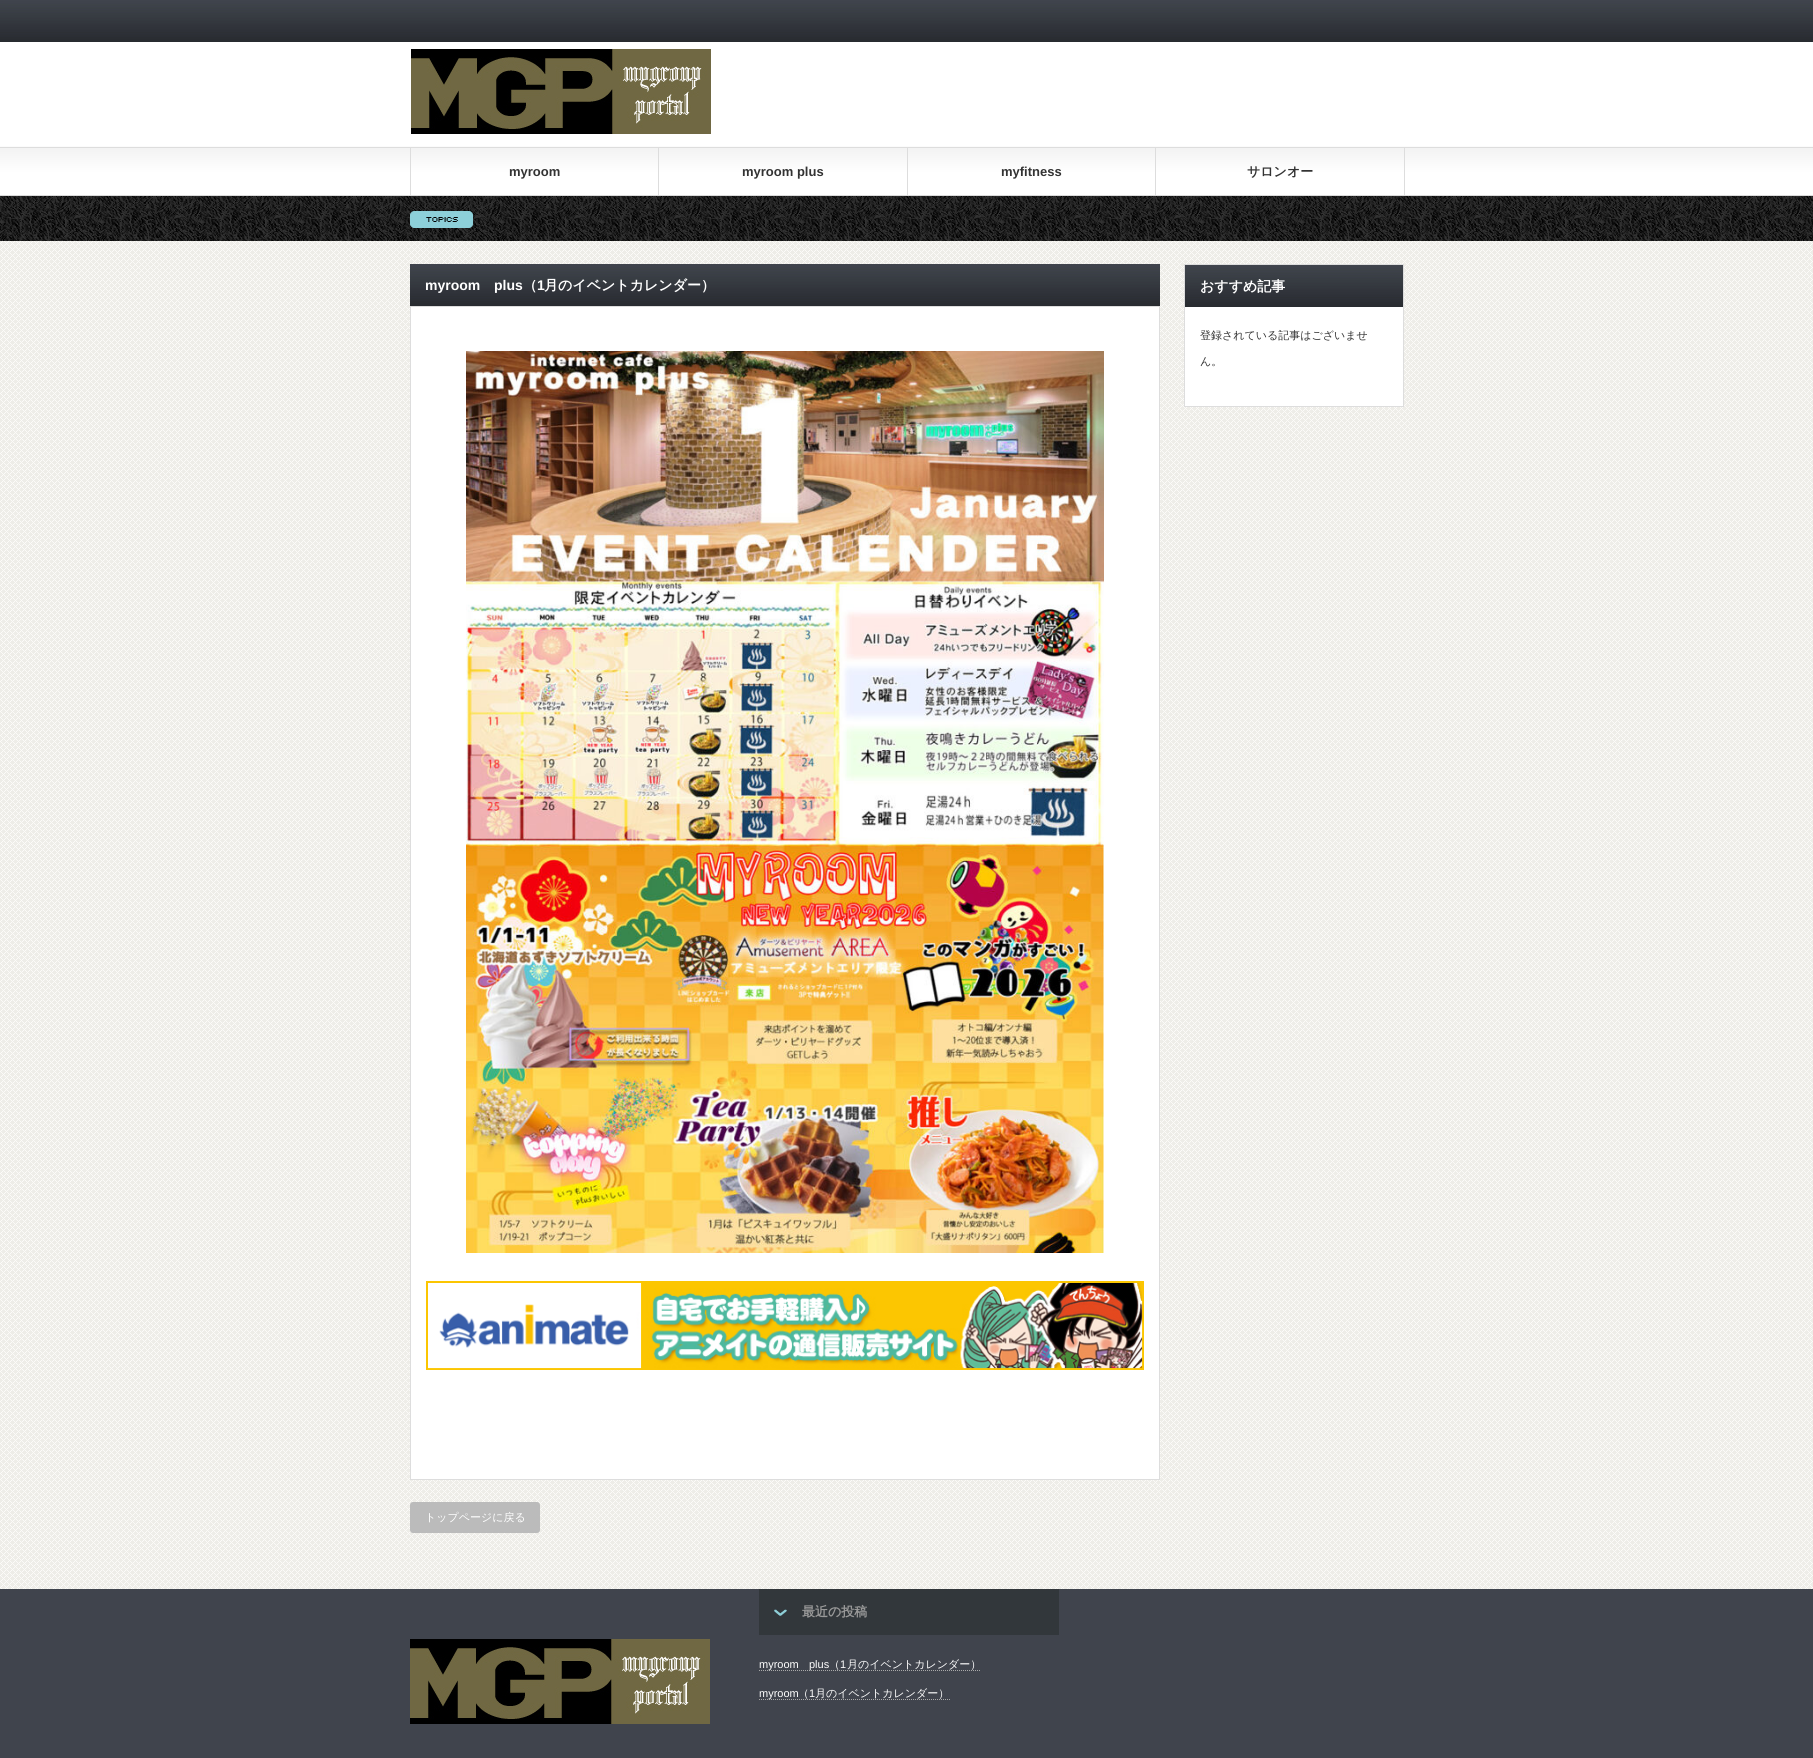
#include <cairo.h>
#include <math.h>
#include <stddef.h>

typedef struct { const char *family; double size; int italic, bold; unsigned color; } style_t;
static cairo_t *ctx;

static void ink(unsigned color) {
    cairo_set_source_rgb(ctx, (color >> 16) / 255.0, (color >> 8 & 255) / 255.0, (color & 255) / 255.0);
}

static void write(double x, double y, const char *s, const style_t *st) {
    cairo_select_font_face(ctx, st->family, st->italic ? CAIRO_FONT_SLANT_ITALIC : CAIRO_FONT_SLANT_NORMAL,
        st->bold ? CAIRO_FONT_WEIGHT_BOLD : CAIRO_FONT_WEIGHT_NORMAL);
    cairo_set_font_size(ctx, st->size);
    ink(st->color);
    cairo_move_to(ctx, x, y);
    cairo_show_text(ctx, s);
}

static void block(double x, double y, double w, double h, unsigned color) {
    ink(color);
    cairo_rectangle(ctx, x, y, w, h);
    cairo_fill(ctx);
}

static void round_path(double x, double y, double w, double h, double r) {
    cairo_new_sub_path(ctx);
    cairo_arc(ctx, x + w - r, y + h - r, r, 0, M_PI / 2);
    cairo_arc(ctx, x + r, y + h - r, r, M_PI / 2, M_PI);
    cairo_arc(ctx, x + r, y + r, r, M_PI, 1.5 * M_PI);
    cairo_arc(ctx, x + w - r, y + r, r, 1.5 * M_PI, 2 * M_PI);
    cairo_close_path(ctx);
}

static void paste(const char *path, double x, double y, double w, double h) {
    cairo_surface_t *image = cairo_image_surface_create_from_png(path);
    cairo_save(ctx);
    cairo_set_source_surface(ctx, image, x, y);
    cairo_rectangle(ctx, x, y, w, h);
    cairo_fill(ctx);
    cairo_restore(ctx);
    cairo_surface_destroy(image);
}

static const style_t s1 = {"Liberation Sans", 13, 0, 1, 0x333333};
static const style_t s2 = {"WenQuanYi Zen Hei", 13, 0, 1, 0x333333};
static const style_t s3 = {"Liberation Sans", 14, 0, 1, 0xffffff};
static const style_t s4 = {"WenQuanYi Zen Hei", 14, 0, 1, 0xffffff};
static const style_t s5 = {"WenQuanYi Zen Hei Medium", 11, 0, 0, 0xffffff};
static const style_t s6 = {"WenQuanYi Zen Hei Medium", 11, 0, 0, 0x333333};
static const style_t s7 = {"WenQuanYi Zen Hei", 13, 0, 1, 0x999999};
static const style_t s8 = {"Liberation Sans", 11, 0, 0, 0xffffff};

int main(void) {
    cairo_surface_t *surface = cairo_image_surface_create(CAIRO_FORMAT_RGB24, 1813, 1758);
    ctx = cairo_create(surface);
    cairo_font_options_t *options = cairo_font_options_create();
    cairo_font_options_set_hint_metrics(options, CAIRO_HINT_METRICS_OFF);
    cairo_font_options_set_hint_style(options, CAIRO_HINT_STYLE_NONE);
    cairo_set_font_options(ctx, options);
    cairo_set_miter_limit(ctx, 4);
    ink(0xffffff);
    cairo_paint(ctx);
    paste("pic1.png", 0, 241, 1813, 1348);
    paste("pic2.png", 0, 0, 1813, 241);
    paste("pic3.png", 411, 49, 300, 85);
    block(1404, 148, 1, 47, 0xdddddd);
    block(410, 148, 1, 47, 0xdddddd);
    write(509, 176, "myroom", &s1);
    block(658, 148, 1, 47, 0xdddddd);
    write(742, 176, "myroom plus", &s1);
    block(907, 148, 1, 47, 0xdddddd);
    write(1001, 176, "myfitness", &s1);
    block(1155, 148, 1, 47, 0xdddddd);
    write(1247, 176, "サロンオー", &s2);
    paste("pic4.png", 410, 211, 63, 17);
    paste("pic5.png", 410, 264, 750, 42);
    write(425, 290, "myroom", &s3);
    write(494, 290, "plus", &s3);
    write(523, 290, "（", &s4);
    write(537, 290, "1", &s3);
    write(544, 290, "月のイベントカレンダー）", &s4);
    cairo_rectangle(ctx, 410.5, 306.5, 749, 1173);
    cairo_fill_preserve(ctx);
    ink(0xdddddd);
    cairo_set_line_width(ctx, 1);
    cairo_stroke(ctx);
    paste("pic6.png", 466, 351, 638, 902);
    paste("pic7.png", 426, 1281, 718, 89);
    ink(0xbbbbbb);
    round_path(410, 1502, 130, 31, 3);
    cairo_fill(ctx);
    write(425, 1521, "トップページに戻る", &s5);
    block(1185, 307, 218, 99, 0xffffff);
    cairo_rectangle(ctx, 1184.5, 264.5, 219, 142);
    ink(0xdddddd);
    cairo_stroke(ctx);
    paste("pic8.png", 1185, 265, 218, 42);
    write(1200, 291, "おすすめ記事", &s4);
    write(1200, 339, "登録されている記事はございませ", &s6);
    write(1200, 365, "ん。", &s6);
    block(0, 1589, 1813, 169, 0x40444d);
    paste("pic3.png", 410, 1639, 300, 85);
    block(759, 1589, 300, 46, 0x32373b);
    paste("pic9.png", 774, 1609, 13, 7);
    write(802, 1616, "最近の投稿", &s7);
    cairo_new_path(ctx);
    cairo_move_to(ctx, 759, 1670.5);
    cairo_line_to(ctx, 981, 1670.5);
    ink(0xaaaaaa);
    cairo_set_dash(ctx, (double[]){1, 1}, 2, 0);
    cairo_stroke(ctx);
    write(759, 1668, "myroom", &s8);
    write(809, 1668, "plus", &s8);
    write(829, 1668, "（", &s5);
    write(840, 1668, "1", &s8);
    write(847, 1668, "月のイベントカレンダー）", &s5);
    cairo_new_path(ctx);
    cairo_move_to(ctx, 759, 1699.5);
    cairo_line_to(ctx, 950, 1699.5);
    ink(0xaaaaaa);
    cairo_stroke(ctx);
    write(759, 1697, "myroom", &s8);
    write(798, 1697, "（", &s5);
    write(809, 1697, "1", &s8);
    write(815, 1697, "月のイベントカレンダー）", &s5);
    cairo_surface_write_to_png(surface, "screenshot.png");
    cairo_font_options_destroy(options);
    cairo_destroy(ctx);
    cairo_surface_destroy(surface);
    return 0;
}
